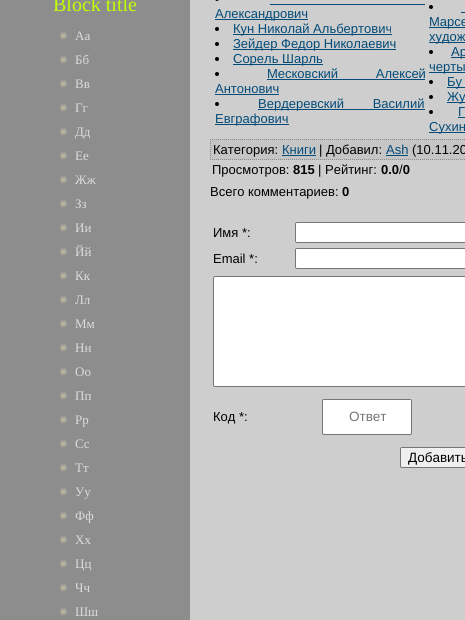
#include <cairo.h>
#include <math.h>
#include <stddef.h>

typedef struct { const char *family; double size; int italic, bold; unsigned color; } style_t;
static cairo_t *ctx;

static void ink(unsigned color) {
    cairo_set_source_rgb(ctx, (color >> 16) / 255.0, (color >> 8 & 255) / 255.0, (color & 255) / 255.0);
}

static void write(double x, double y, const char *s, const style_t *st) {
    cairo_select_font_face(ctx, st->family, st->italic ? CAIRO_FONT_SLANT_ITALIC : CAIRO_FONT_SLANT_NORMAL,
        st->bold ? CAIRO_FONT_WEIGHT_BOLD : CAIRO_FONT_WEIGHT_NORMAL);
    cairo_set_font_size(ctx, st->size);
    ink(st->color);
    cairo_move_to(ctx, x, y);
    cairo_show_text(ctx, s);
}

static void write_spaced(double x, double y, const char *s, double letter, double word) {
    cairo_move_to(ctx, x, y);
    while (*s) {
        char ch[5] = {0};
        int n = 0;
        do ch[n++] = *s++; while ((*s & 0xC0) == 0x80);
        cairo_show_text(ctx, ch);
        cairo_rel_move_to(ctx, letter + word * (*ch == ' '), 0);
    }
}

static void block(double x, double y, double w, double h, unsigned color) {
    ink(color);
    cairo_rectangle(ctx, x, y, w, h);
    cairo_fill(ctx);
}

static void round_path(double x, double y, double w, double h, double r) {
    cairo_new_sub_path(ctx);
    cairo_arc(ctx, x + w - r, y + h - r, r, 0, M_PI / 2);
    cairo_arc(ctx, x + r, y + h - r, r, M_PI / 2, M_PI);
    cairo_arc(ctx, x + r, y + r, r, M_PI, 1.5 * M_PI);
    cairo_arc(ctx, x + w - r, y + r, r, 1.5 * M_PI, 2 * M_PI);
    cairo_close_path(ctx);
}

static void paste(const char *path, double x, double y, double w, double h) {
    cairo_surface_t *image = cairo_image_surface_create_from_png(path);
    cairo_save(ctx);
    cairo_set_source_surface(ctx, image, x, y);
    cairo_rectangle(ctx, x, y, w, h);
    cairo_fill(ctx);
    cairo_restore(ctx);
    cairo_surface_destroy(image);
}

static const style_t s1 = {"Liberation Serif", 20, 0, 0, 0xc2ff00};
static const style_t s2 = {"Liberation Serif", 13, 0, 0, 0xdbdbdb};
static const style_t s3 = {"Liberation Sans", 13, 0, 0, 0x034b78};
static const style_t s4 = {"Liberation Sans", 13, 0, 0, 0x000000};
static const style_t s5 = {"Liberation Sans", 13, 0, 1, 0x000000};
static const style_t s6 = {"Liberation Sans", 13.5, 0, 0, 0x757575};
static const style_t s7 = {"Liberation Sans", 13.5, 0, 0, 0x000000};

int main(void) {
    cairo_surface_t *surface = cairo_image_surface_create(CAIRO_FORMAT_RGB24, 465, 620);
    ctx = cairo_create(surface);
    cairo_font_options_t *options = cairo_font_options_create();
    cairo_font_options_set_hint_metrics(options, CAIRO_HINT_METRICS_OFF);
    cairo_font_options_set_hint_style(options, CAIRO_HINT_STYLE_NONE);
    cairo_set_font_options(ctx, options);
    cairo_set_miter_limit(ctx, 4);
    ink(0x8d8d8d);
    cairo_paint(ctx);
    write(53, 11, "Block title", &s1);
    paste("pic1.png", 59, 31, 9, 9);
    write(75, 40, "Аа", &s2);
    paste("pic1.png", 59, 55, 9, 9);
    write(75, 64, "Бб", &s2);
    paste("pic1.png", 59, 79, 9, 9);
    write(75, 88, "Вв", &s2);
    paste("pic1.png", 59, 103, 9, 9);
    write(75, 112, "Гг", &s2);
    paste("pic1.png", 59, 127, 9, 9);
    write(75, 136, "Дд", &s2);
    paste("pic1.png", 59, 151, 9, 9);
    write(75, 160, "Ее", &s2);
    paste("pic1.png", 59, 175, 9, 9);
    write(75, 184, "Жж", &s2);
    paste("pic1.png", 59, 199, 9, 9);
    write(75, 208, "Зз", &s2);
    paste("pic1.png", 59, 223, 9, 9);
    write(75, 232, "Ии", &s2);
    paste("pic1.png", 59, 247, 9, 9);
    write(75, 256, "Йй", &s2);
    paste("pic1.png", 59, 271, 9, 9);
    write(75, 280, "Кк", &s2);
    paste("pic1.png", 59, 295, 9, 9);
    write(75, 304, "Лл", &s2);
    paste("pic1.png", 59, 319, 9, 9);
    write(75, 328, "Мм", &s2);
    paste("pic1.png", 59, 343, 9, 9);
    write(75, 352, "Нн", &s2);
    paste("pic1.png", 59, 367, 9, 9);
    write(75, 376, "Оо", &s2);
    paste("pic1.png", 59, 391, 9, 9);
    write(75, 400, "Пп", &s2);
    paste("pic1.png", 59, 415, 9, 9);
    write(75, 424, "Рр", &s2);
    paste("pic1.png", 59, 439, 9, 9);
    write(75, 448, "Сс", &s2);
    paste("pic1.png", 59, 463, 9, 9);
    write(75, 472, "Тт", &s2);
    paste("pic1.png", 59, 487, 9, 9);
    write(75, 496, "Уу", &s2);
    paste("pic1.png", 59, 511, 9, 9);
    write(75, 520, "Фф", &s2);
    paste("pic1.png", 59, 535, 9, 9);
    write(75, 544, "Хх", &s2);
    paste("pic1.png", 59, 559, 9, 9);
    write(75, 568, "Цц", &s2);
    paste("pic1.png", 59, 583, 9, 9);
    write(75, 592, "Чч", &s2);
    paste("pic1.png", 59, 607, 9, 9);
    write(75, 616, "Шш", &s2);
    block(190, 0, 275, 620, 0xcecece);
    ink(0x000000);
    round_path(215, -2, 4, 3, 2);
    cairo_fill(ctx);
    block(215, 19, 93, 1, 0x034b78);
    write(215, 18, "Александрович", &s3);
    block(270, 4, 155, 1, 0x034b78);
    ink(0x000000);
    cairo_new_path(ctx);
    cairo_arc(ctx, 217, 29, 2, 0, 2 * M_PI);
    cairo_fill(ctx);
    block(233, 34, 159, 1, 0x034b78);
    write(233, 33, "Кун Николай Альбертович", &s3);
    ink(0x000000);
    cairo_new_path(ctx);
    cairo_arc(ctx, 217, 44, 2, 0, 2 * M_PI);
    cairo_fill(ctx);
    block(233, 49, 163, 1, 0x034b78);
    write(233, 48, "Зейдер Федор Николаевич", &s3);
    ink(0x000000);
    cairo_new_path(ctx);
    cairo_arc(ctx, 217, 59, 2, 0, 2 * M_PI);
    cairo_fill(ctx);
    block(233, 64, 90, 1, 0x034b78);
    write(233, 63, "Сорель Шарль", &s3);
    ink(0x000000);
    cairo_new_path(ctx);
    cairo_arc(ctx, 217, 74, 2, 0, 2 * M_PI);
    cairo_fill(ctx);
    ink(0x034b78);
    write_spaced(267, 78, "Месковский Алексей", 0, 34);
    block(267, 79, 158, 1, 0x034b78);
    write(215, 93, "Антонович", &s3);
    block(215, 94, 64, 1, 0x034b78);
    ink(0x000000);
    cairo_new_path(ctx);
    cairo_arc(ctx, 217, 104, 2, 0, 2 * M_PI);
    cairo_fill(ctx);
    block(258, 109, 167, 1, 0x034b78);
    write_spaced(258, 108, "Вердеревский Василий", 0, 25);
    block(215, 124, 74, 1, 0x034b78);
    write(215, 123, "Евграфович", &s3);
    ink(0x000000);
    cairo_new_path(ctx);
    cairo_arc(ctx, 431, 7, 2, 0, 2 * M_PI);
    cairo_fill(ctx);
    block(429, 27, 36, 1, 0x034b78);
    write_spaced(429, 26, "Марсе", 0, 15);
    block(461, 12, 4, 1, 0x034b78);
    block(429, 42, 36, 1, 0x034b78);
    write(429, 41, "худож", &s3);
    ink(0x000000);
    cairo_new_path(ctx);
    cairo_arc(ctx, 431, 52, 2, 0, 2 * M_PI);
    cairo_fill(ctx);
    block(451, 57, 14, 1, 0x034b78);
    write_spaced(451, 56, "Ар", 0, 4);
    block(429, 72, 36, 1, 0x034b78);
    write(429, 71, "черты", &s3);
    ink(0x000000);
    cairo_new_path(ctx);
    cairo_arc(ctx, 431, 82, 2, 0, 2 * M_PI);
    cairo_fill(ctx);
    block(447, 87, 18, 1, 0x034b78);
    write(447, 86, "Бу", &s3);
    ink(0x000000);
    cairo_new_path(ctx);
    cairo_arc(ctx, 431, 97, 2, 0, 2 * M_PI);
    cairo_fill(ctx);
    block(447, 102, 18, 1, 0x034b78);
    write(447, 101, "Жу", &s3);
    ink(0x000000);
    cairo_new_path(ctx);
    cairo_arc(ctx, 431, 112, 2, 0, 2 * M_PI);
    cairo_fill(ctx);
    ink(0x034b78);
    write_spaced(458, 116, "Г", 0, 11);
    block(458, 117, 7, 1, 0x034b78);
    block(429, 132, 36, 1, 0x034b78);
    write(429, 131, "Сухин", &s3);
    block(210, 139, 255, 21, 0xc5c5c5);
    cairo_new_path(ctx);
    cairo_move_to(ctx, 210, 139.5);
    cairo_line_to(ctx, 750, 139.5);
    ink(0x8d8d8d);
    cairo_set_line_width(ctx, 1);
    cairo_set_dash(ctx, (double[]){1, 1}, 2, 0);
    cairo_stroke(ctx);
    cairo_new_path(ctx);
    cairo_move_to(ctx, 210, 159.5);
    cairo_line_to(ctx, 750, 159.5);
    cairo_stroke(ctx);
    cairo_new_path(ctx);
    cairo_move_to(ctx, 210.5, 139);
    cairo_line_to(ctx, 210.5, 160);
    cairo_stroke(ctx);
    write(213, 154, "Категория:", &s4);
    write(282, 154, "Книги", &s3);
    block(282, 155, 34, 1, 0x034b78);
    write(319, 154, "| Добавил:", &s4);
    write(386, 154, "Ash", &s3);
    block(386, 155, 22, 1, 0x034b78);
    write(412, 154, "(10.11.20", &s4);
    write(293, 174, "815", &s5);
    write(318, 174, "| Рейтинг:", &s4);
    write(381, 174, "0.0 0", &s5);
    write(212, 174, "Просмотров:", &s4);
    write(399, 174, "/", &s4);
    write(210, 196, "Всего комментариев:", &s4);
    write(342, 196, "0", &s5);
    write(213, 237, "Имя *:", &s4);
    ink(0xffffff);
    round_path(295.5, 222.5, 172, 20, 1.5);
    cairo_fill_preserve(ctx);
    ink(0x767676);
    cairo_set_dash(ctx, NULL, 0, 0);
    cairo_stroke(ctx);
    write(213, 263, "Email *:", &s4);
    ink(0xffffff);
    round_path(295.5, 248.5, 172, 20, 1.5);
    cairo_fill_preserve(ctx);
    ink(0x767676);
    cairo_stroke(ctx);
    ink(0xffffff);
    round_path(213.5, 276.5, 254, 110, 1.5);
    cairo_fill_preserve(ctx);
    ink(0x767676);
    cairo_stroke(ctx);
    write(213, 421, "Код *:", &s4);
    ink(0xffffff);
    round_path(322.5, 399.5, 89, 35, 1.5);
    cairo_fill_preserve(ctx);
    ink(0x767676);
    cairo_stroke(ctx);
    write(349, 421, "Ответ", &s6);
    ink(0xefefef);
    round_path(400.5, 447.5, 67, 20, 1.5);
    cairo_fill_preserve(ctx);
    ink(0x767676);
    cairo_stroke(ctx);
    write(408, 462, "Добавить", &s7);
    cairo_surface_write_to_png(surface, "screenshot.png");
    cairo_font_options_destroy(options);
    cairo_destroy(ctx);
    cairo_surface_destroy(surface);
    return 0;
}
